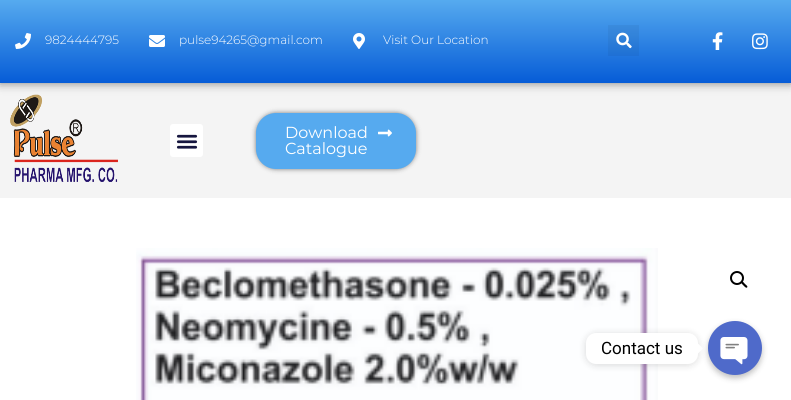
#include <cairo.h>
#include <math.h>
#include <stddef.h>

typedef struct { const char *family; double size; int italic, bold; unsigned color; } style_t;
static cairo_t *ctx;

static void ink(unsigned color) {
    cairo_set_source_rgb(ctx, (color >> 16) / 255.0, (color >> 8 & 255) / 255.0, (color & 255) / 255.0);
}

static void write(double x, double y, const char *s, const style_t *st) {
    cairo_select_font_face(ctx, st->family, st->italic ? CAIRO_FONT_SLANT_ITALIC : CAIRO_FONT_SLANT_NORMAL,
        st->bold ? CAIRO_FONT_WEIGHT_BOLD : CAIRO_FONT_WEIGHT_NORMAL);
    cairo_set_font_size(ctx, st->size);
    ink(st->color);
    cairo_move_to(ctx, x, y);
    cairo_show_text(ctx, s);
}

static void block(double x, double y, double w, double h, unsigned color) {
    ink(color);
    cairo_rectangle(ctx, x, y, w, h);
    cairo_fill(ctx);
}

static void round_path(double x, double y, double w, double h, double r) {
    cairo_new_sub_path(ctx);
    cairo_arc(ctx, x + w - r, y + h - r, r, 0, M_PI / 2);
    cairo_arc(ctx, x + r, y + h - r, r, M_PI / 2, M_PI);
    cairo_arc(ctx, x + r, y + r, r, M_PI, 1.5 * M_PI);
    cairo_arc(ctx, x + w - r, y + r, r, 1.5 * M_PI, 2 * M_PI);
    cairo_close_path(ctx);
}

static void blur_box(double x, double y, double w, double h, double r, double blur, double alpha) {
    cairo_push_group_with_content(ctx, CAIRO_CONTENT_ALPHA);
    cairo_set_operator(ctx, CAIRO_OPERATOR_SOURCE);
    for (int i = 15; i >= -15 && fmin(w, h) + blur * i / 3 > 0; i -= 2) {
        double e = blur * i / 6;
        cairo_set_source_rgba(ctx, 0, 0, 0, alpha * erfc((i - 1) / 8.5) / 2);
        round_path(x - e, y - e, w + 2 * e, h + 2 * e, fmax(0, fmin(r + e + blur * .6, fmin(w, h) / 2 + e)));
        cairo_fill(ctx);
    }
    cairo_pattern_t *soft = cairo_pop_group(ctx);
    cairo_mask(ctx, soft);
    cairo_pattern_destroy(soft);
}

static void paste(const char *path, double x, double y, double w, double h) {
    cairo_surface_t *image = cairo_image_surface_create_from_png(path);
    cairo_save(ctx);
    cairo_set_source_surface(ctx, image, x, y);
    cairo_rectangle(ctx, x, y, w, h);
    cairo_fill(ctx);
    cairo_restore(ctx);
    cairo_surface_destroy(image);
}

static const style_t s1 = {"Montserrat Light", 12, 0, 0, 0xffffff};
static const style_t s2 = {"Montserrat", 16, 0, 0, 0xffffff};
static const style_t s3 = {"Roboto", 17, 0, 0, 0x000000};

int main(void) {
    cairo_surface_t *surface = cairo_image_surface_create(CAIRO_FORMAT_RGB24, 791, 400);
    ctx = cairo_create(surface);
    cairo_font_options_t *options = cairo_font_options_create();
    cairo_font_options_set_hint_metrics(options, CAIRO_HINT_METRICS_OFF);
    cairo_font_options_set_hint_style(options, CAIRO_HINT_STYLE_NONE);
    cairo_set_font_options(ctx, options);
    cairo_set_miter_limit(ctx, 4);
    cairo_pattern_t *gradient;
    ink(0xffffff);
    cairo_paint(ctx);
    block(0, 83, 791, 115, 0xf4f4f4);
    paste("pic7.png", 10, 94, 108, 88);
    ink(0x000000);
    blur_box(0, 0, 791, 83, 0, 5, 0.5);
    gradient = cairo_pattern_create_linear(396, 0, 396, 83);
    cairo_pattern_add_color_stop_rgba(gradient, 0, 0.337, 0.667, 0.937, 1);
    cairo_pattern_add_color_stop_rgba(gradient, 1, 0.024, 0.361, 0.843, 1);
    cairo_set_source(ctx, gradient);
    cairo_pattern_destroy(gradient);
    cairo_rectangle(ctx, 0, 0, 791, 83);
    cairo_fill(ctx);
    paste("pic1.png", 15, 33, 16, 16);
    write(45, 44, "9824444795", &s1);
    paste("pic2.png", 149, 35, 16, 12);
    write(179, 44, "pulse94265@gmail.com", &s1);
    paste("pic3.png", 353, 33, 12, 16);
    write(383, 44, "Visit Our Location", &s1);
    cairo_set_source_rgba(ctx, 0, 0, 0, 0.05);
    cairo_rectangle(ctx, 608, 25, 31, 31);
    cairo_fill(ctx);
    paste("pic4.png", 616, 32, 16, 17);
    paste("pic5.png", 712, 32, 11, 18);
    paste("pic6.png", 752, 33, 16, 17);
    ink(0xffffff);
    round_path(170, 124, 33, 33, 3);
    cairo_fill(ctx);
    paste("pic8.png", 176, 134, 22, 15);
    ink(0x000000);
    blur_box(256, 113, 160, 56, 20, 2.5, 0.5);
    ink(0x56aaef);
    round_path(256, 113, 160, 56, 20);
    cairo_fill(ctx);
    write(285, 138, "Download", &s2);
    write(285, 154, "Catalogue", &s2);
    paste("pic9.png", 378, 129, 14, 8);
    paste("pic10.png", 136, 248, 522, 152);
    cairo_arc(ctx, 737, 278, 6, 0, 2 * M_PI);
    ink(0x000000);
    cairo_stroke(ctx);
    cairo_new_path(ctx);
    cairo_move_to(ctx, 741.5, 282);
    cairo_curve_to(ctx, 742.5, 280.5, 744.5, 283.5, 745, 284);
    cairo_curve_to(ctx, 745.5, 284.5, 748.5, 286.5, 747, 287.5);
    cairo_curve_to(ctx, 746, 288.5, 744, 286, 743.5, 285.5);
    cairo_curve_to(ctx, 743, 285, 740.5, 283, 741.5, 282);
    cairo_close_path(ctx);
    cairo_fill(ctx);
    ink(0x000000);
    blur_box(586, 334, 112, 31, 10, 4, 0.15);
    ink(0xffffff);
    round_path(586, 333, 112, 31, 10);
    cairo_fill(ctx);
    write(601, 354, "Contact us", &s3);
    ink(0xffffff);
    cairo_new_path(ctx);
    cairo_move_to(ctx, 698, 353.5);
    cairo_line_to(ctx, 698, 343.5);
    cairo_line_to(ctx, 703, 348.5);
    cairo_close_path(ctx);
    cairo_fill(ctx);
    ink(0x000000);
    blur_box(708, 324, 54, 54, 27, 3, 0.25);
    paste("pic11.png", 708, 321, 54, 54);
    cairo_surface_write_to_png(surface, "screenshot.png");
    cairo_font_options_destroy(options);
    cairo_destroy(ctx);
    cairo_surface_destroy(surface);
    return 0;
}
